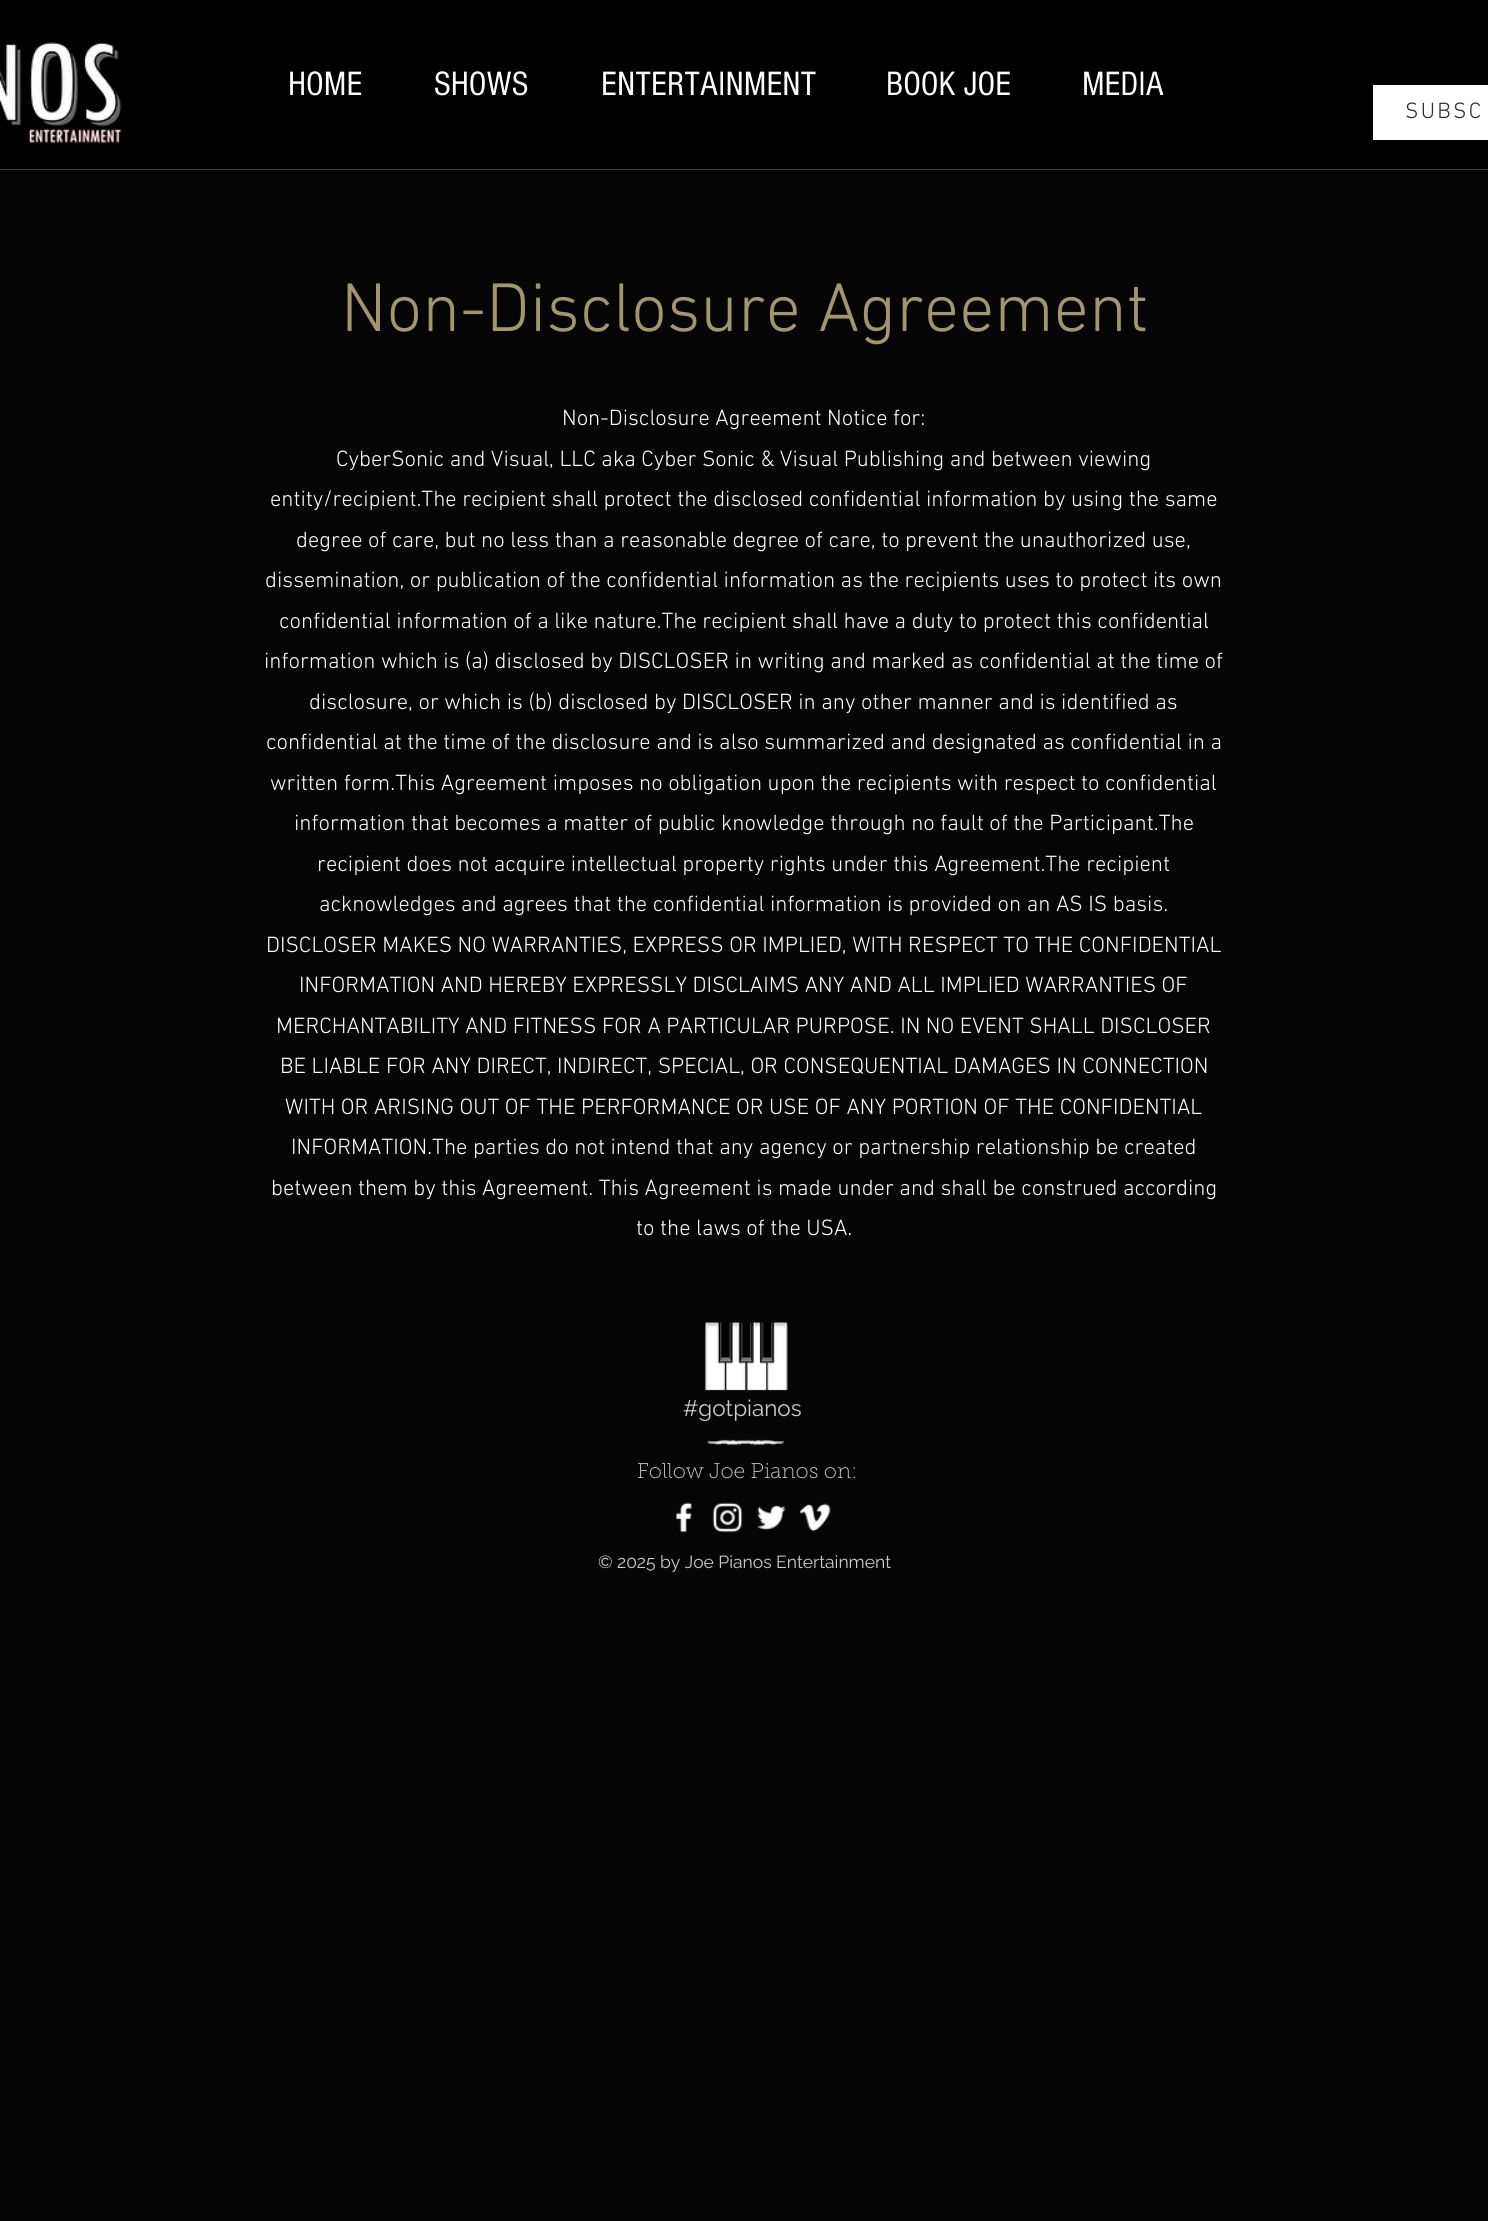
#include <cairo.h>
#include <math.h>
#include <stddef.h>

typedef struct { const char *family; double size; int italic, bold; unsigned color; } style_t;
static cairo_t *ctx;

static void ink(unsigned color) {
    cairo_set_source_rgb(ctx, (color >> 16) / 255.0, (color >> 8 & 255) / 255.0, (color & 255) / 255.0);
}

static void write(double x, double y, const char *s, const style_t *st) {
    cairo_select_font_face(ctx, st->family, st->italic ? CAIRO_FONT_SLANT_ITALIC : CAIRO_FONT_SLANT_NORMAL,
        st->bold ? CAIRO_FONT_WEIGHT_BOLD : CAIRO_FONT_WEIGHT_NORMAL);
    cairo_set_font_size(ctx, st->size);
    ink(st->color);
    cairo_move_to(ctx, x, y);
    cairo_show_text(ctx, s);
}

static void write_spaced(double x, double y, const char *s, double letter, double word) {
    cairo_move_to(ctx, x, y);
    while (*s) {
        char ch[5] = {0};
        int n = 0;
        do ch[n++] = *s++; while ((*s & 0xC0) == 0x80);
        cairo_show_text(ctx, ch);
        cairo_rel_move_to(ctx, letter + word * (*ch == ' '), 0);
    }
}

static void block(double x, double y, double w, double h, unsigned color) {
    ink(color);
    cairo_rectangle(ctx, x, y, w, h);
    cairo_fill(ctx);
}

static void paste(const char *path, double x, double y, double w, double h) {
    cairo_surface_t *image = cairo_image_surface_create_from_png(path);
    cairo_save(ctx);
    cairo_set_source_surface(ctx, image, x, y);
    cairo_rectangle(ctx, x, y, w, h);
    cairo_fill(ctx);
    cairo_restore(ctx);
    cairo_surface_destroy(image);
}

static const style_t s1 = {"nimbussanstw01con", 35, 0, 0, 0xffffff};
static const style_t s2 = {"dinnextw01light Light", 70, 0, 0, 0xa3956d};
static const style_t s3 = {"dinnextw01light Light", 22.5, 0, 0, 0xffffff};
static const style_t s4 = {"Raleway", 22.5, 0, 0, 0xcccccc};
static const style_t s5 = {"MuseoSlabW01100 Thin", 21.25, 0, 0, 0xcccccc};
static const style_t s6 = {"Raleway", 17.5, 0, 0, 0xcccccc};

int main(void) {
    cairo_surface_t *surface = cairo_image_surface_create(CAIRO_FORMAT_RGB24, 1488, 2221);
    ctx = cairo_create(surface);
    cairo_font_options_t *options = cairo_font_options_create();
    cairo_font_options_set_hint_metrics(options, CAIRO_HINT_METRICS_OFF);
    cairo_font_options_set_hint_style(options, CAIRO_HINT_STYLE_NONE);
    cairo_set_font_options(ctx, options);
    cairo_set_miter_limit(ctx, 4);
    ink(0x050505);
    cairo_paint(ctx);
    block(0, 169, 1488, 1, 0x3c3c3c);
    block(0, 0, 1488, 169, 0x000000);
    paste("pic1.png", 0, 42, 122, 102);
    write(288, 95, "HOME", &s1);
    write(434, 95, "SHOWS", &s1);
    write(601, 95, "ENTERTAINMENT", &s1);
    write(886, 95, "BOOK JOE", &s1);
    write(1082, 95, "MEDIA", &s1);
    block(1373, 85, 115, 55, 0xffffff);
    cairo_select_font_face(ctx, "dinnextw01light Light", CAIRO_FONT_SLANT_NORMAL, CAIRO_FONT_WEIGHT_NORMAL);
    cairo_set_font_size(ctx, 22.5);
    ink(0x2f2e2e);
    write_spaced(1405, 118, "SUBSC", 2.25, 0);
    write(341, 331, "Non-Disclosure Agreement", &s2);
    write(562, 425, "Non-Disclosure Agreement Notice for:", &s3);
    write(336, 466, "CyberSonic and Visual, LLC aka Cyber Sonic & Visual Publishing and between viewing", &s3);
    write(270, 506, "entity/recipient.The recipient shall protect the disclosed confidential information by using the same", &s3);
    write(296, 547, "degree of care, but no less than a reasonable degree of care, to prevent the unauthorized use,", &s3);
    write(265, 587, "dissemination, or publication of the confidential information as the recipients uses to protect its own", &s3);
    write(279, 628, "confidential information of a like nature.The recipient shall have a duty to protect this confidential", &s3);
    write(264, 668, "information which is (a) disclosed by DISCLOSER in writing and marked as confidential at the time of", &s3);
    write(309, 709, "disclosure, or which is (b) disclosed by DISCLOSER in any other manner and is identified as", &s3);
    write(266, 749, "confidential at the time of the disclosure and is also summarized and designated as confidential in a", &s3);
    write(270, 790, "written form.This Agreement imposes no obligation upon the recipients with respect to confidential", &s3);
    write(294, 830, "information that becomes a matter of public knowledge through no fault of the Participant.The", &s3);
    write(317, 871, "recipient does not acquire intellectual property rights under this Agreement.The recipient", &s3);
    write(319, 911, "acknowledges and agrees that the confidential information is provided on an AS IS basis.", &s3);
    write(266, 952, "DISCLOSER MAKES NO WARRANTIES, EXPRESS OR IMPLIED, WITH RESPECT TO THE CONFIDENTIAL", &s3);
    write(299, 992, "INFORMATION AND HEREBY EXPRESSLY DISCLAIMS ANY AND ALL IMPLIED WARRANTIES OF", &s3);
    write(276, 1033, "MERCHANTABILITY AND FITNESS FOR A PARTICULAR PURPOSE. IN NO EVENT SHALL DISCLOSER", &s3);
    write(280, 1073, "BE LIABLE FOR ANY DIRECT, INDIRECT, SPECIAL, OR CONSEQUENTIAL DAMAGES IN CONNECTION", &s3);
    write(285, 1114, "WITH OR ARISING OUT OF THE PERFORMANCE OR USE OF ANY PORTION OF THE CONFIDENTIAL", &s3);
    write(291, 1154, "INFORMATION.The parties do not intend that any agency or partnership relationship be created", &s3);
    write(271, 1195, "between them by this Agreement. This Agreement is made under and shall be construed according", &s3);
    write(636, 1235, "to the laws of the USA.", &s3);
    paste("pic2.png", 704, 1322, 84, 69);
    write(683, 1416, "#gotpianos", &s4);
    paste("pic3.png", 706, 1439, 79, 7);
    write(637, 1478, "Follow Joe Pianos on:", &s5);
    paste("pic4.png", 676, 1502, 17, 31);
    paste("pic5.png", 712, 1502, 31, 31);
    paste("pic6.png", 757, 1505, 29, 26);
    paste("pic7.png", 799, 1503, 32, 29);
    write(598, 1568, "© 2025 by Joe Pianos Entertainment", &s6);
    cairo_surface_write_to_png(surface, "screenshot.png");
    cairo_font_options_destroy(options);
    cairo_destroy(ctx);
    cairo_surface_destroy(surface);
    return 0;
}
